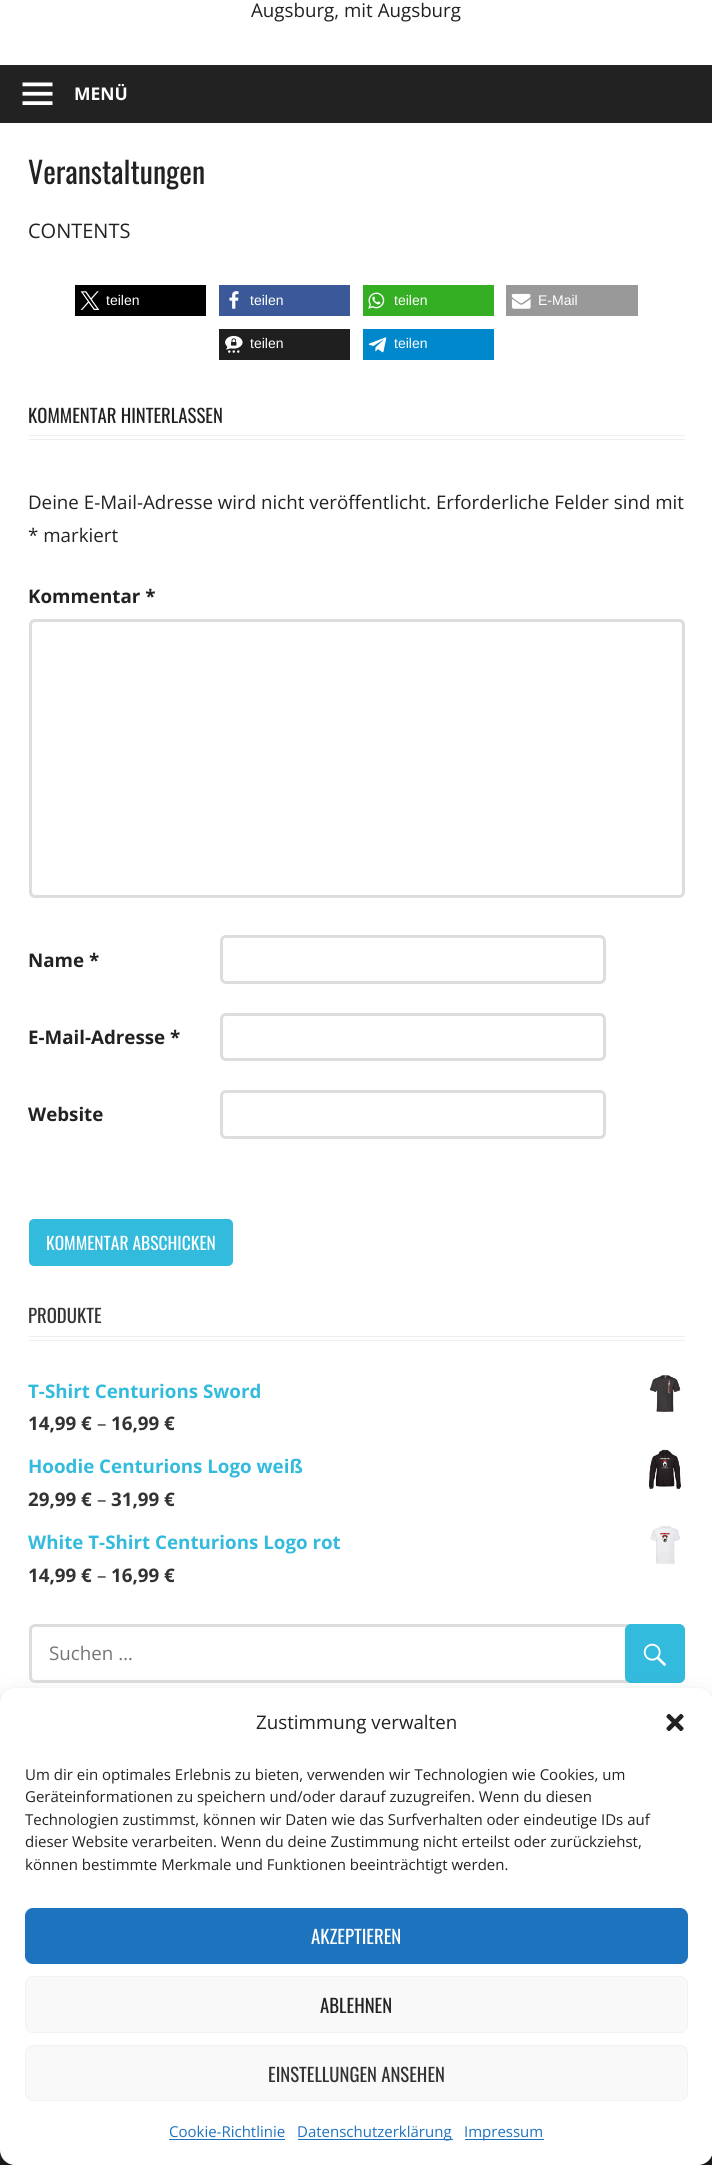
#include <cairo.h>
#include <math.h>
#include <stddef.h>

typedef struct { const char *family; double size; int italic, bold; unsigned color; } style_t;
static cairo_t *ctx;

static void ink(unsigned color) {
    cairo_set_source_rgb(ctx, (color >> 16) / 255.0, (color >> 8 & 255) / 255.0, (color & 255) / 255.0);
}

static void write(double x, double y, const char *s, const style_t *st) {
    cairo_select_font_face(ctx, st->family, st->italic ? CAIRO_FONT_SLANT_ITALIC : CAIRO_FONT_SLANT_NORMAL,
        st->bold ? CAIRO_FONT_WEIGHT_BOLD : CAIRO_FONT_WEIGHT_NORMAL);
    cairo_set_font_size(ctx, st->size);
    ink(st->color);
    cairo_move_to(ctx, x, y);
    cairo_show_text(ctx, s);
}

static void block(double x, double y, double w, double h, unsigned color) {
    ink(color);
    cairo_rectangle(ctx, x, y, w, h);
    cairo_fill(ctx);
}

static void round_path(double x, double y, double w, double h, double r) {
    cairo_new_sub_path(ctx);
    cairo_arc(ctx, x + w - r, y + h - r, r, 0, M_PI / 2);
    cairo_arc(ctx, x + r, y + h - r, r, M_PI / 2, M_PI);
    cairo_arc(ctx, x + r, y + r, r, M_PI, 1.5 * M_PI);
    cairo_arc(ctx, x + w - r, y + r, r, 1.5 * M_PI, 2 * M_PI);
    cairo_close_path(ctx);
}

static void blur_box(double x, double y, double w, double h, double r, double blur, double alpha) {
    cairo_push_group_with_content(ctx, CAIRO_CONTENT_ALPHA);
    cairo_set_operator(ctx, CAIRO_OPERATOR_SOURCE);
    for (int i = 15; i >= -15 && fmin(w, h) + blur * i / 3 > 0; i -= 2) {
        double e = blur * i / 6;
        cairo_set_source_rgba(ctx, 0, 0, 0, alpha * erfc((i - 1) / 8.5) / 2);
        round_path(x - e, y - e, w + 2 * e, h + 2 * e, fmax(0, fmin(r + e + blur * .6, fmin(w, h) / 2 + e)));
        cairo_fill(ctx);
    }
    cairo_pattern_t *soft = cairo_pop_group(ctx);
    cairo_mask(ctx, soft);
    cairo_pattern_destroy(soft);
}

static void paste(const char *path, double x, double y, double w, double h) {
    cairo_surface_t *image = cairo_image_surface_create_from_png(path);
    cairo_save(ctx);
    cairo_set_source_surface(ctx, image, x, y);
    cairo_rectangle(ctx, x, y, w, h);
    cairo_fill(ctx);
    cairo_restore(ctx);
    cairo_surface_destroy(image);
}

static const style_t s1 = {"Open Sans", 18.75, 0, 0, 0x222222};
static const style_t s2 = {"Open Sans", 17.5, 0, 1, 0xffffff};
static const style_t s3 = {"Oswald", 30, 0, 0, 0x222222};
static const style_t s4 = {"Open Sans", 20, 0, 0, 0x222222};
static const style_t s5 = {"Liberation Sans", 14, 0, 0, 0xffffff};
static const style_t s6 = {"Oswald", 18.75, 0, 0, 0x222222};
static const style_t s7 = {"Open Sans", 18.75, 0, 1, 0x222222};
static const style_t s8 = {"Oswald", 17.5, 0, 0, 0xffffff};
static const style_t s9 = {"Oswald", 18.75, 0, 0, 0x333333};
static const style_t s10 = {"Open Sans", 18.75, 0, 1, 0x33bbdd};
static const style_t s11 = {"Open Sans", 18.75, 0, 1, 0x333333};
static const style_t s12 = {"Open Sans", 18.75, 0, 0, 0x333333};
static const style_t s13 = {"Open Sans", 18.75, 0, 0, 0x757575};
static const style_t s14 = {"Open Sans", 15, 0, 0, 0x222222};
static const style_t s15 = {"Oswald", 18.75, 0, 0, 0xffffff};
static const style_t s16 = {"Open Sans", 15, 0, 0, 0x1e73be};

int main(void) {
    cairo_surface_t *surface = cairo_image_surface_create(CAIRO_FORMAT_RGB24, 712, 2165);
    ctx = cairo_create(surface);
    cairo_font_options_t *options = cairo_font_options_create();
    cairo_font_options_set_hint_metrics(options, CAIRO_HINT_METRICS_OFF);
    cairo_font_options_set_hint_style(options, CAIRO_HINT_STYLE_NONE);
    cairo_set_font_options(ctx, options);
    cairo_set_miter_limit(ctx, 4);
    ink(0xffffff);
    cairo_paint(ctx);
    write(251, 17, "Augsburg, mit Augsburg", &s1);
    block(0, 65, 712, 58, 0x222222);
    paste("pic1.png", 22, 82, 31, 23);
    write(74, 100, "MENÜ", &s2);
    write(28, 184, "Veranstaltungen", &s3);
    write(28, 238, "CONTENTS", &s4);
    block(75, 285, 131, 31, 0x000000);
    paste("pic2.png", 80, 291, 20, 19);
    write(106, 305, "teilen", &s5);
    block(219, 285, 131, 31, 0x3b5998);
    paste("pic3.png", 229, 291, 10, 18);
    write(250, 305, "teilen", &s5);
    block(363, 285, 131, 31, 0x34af23);
    paste("pic4.png", 368, 292, 17, 17);
    write(394, 305, "teilen", &s5);
    block(506, 285, 132, 31, 0x999999);
    paste("pic5.png", 511, 293, 20, 16);
    write(538, 305, "E-Mail", &s5);
    block(219, 329, 131, 31, 0x1f1f1f);
    paste("pic6.png", 225, 335, 18, 18);
    write(250, 348, "teilen", &s5);
    block(363, 329, 131, 31, 0x0088cc);
    paste("pic7.png", 368, 337, 19, 16);
    write(394, 348, "teilen", &s5);
    block(29, 439, 656, 1, 0xeeeeee);
    block(29, 435, 656, 1, 0xeeeeee);
    write(28, 423, "KOMMENTAR HINTERLASSEN", &s6);
    write(28, 509, "Deine E-Mail-Adresse wird nicht veröffentlicht. Erforderliche Felder sind mit", &s1);
    write(28, 542, "* markiert", &s1);
    write(28, 603, "Kommentar *", &s7);
    round_path(30.5, 620.5, 653, 276, 4.5);
    ink(0xdddddd);
    cairo_set_line_width(ctx, 3);
    cairo_stroke(ctx);
    write(28, 967, "Name *", &s7);
    round_path(221.5, 936.5, 383, 46, 4.5);
    ink(0xdddddd);
    cairo_stroke(ctx);
    write(28, 1044, "E-Mail-Adresse *", &s7);
    round_path(221.5, 1014.5, 383, 45, 4.5);
    ink(0xdddddd);
    cairo_stroke(ctx);
    write(28, 1121, "Website", &s7);
    round_path(221.5, 1091.5, 383, 46, 4.5);
    ink(0xdddddd);
    cairo_stroke(ctx);
    ink(0x33bbdd);
    round_path(29, 1219, 204, 47, 5);
    cairo_fill(ctx);
    write(46, 1250, "KOMMENTAR ABSCHICKEN", &s8);
    block(29, 1340, 656, 1, 0xeeeeee);
    block(29, 1336, 656, 1, 0xeeeeee);
    write(28, 1323, "PRODUKTE", &s9);
    write(28, 1398, "T-Shirt Centurions Sword", &s10);
    paste("pic8.png", 649, 1375, 32, 37);
    write(28, 1430, "14,99 €", &s11);
    write(97, 1430, "–", &s12);
    write(111, 1430, "16,99 €", &s11);
    write(28, 1473, "Hoodie Centurions Logo weiß", &s10);
    paste("pic9.png", 649, 1449, 32, 40);
    write(28, 1506, "29,99 €", &s11);
    write(97, 1506, "–", &s12);
    write(111, 1506, "31,99 €", &s11);
    write(28, 1549, "White T-Shirt Centurions Logo rot", &s10);
    paste("pic10.png", 650, 1526, 30, 38);
    write(28, 1582, "14,99 €", &s11);
    write(97, 1582, "–", &s12);
    write(111, 1582, "16,99 €", &s11);
    round_path(30.5, 1625.5, 653, 56, 4.5);
    ink(0xdddddd);
    cairo_stroke(ctx);
    write(49, 1660, "Suchen …", &s13);
    ink(0x33bbdd);
    round_path(625, 1624, 60, 59, 6);
    cairo_fill(ctx);
    paste("pic11.png", 643, 1643, 24, 24);
    block(0, 2150, 712, 15, 0x222222);
    ink(0x000000);
    blur_box(0, 1695, 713, 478, 15, 4, 0.23);
    blur_box(0, 1700, 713, 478, 15, 12.5, 0.19);
    ink(0xffffff);
    round_path(0, 1688, 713, 477, 15);
    cairo_fill(ctx);
    write(256, 1729, "Zustimmung verwalten", &s1);
    paste("pic12.png", 666, 1713, 18, 18);
    write(25, 1780, "Um dir ein optimales Erlebnis zu bieten, verwenden wir Technologien wie Cookies, um", &s14);
    write(25, 1802, "Geräteinformationen zu speichern und/oder darauf zuzugreifen. Wenn du diesen", &s14);
    write(25, 1825, "Technologien zustimmst, können wir Daten wie das Surfverhalten oder eindeutige IDs auf", &s14);
    write(25, 1847, "dieser Website verarbeiten. Wenn du deine Zustimmung nicht erteilst oder zurückziehst,", &s14);
    write(25, 1870, "können bestimmte Merkmale und Funktionen beeinträchtigt werden.", &s14);
    ink(0x1e73be);
    round_path(25.5, 1908.5, 662, 55, 7.5);
    cairo_fill_preserve(ctx);
    cairo_set_line_width(ctx, 1);
    cairo_stroke(ctx);
    write(311, 1944, "AKZEPTIEREN", &s15);
    ink(0xf9f9f9);
    round_path(25.5, 1976.5, 662, 56, 7.5);
    cairo_fill_preserve(ctx);
    ink(0xf2f2f2);
    cairo_stroke(ctx);
    write(320, 2013, "ABLEHNEN", &s6);
    ink(0xf9f9f9);
    round_path(25.5, 2045.5, 662, 55, 7.5);
    cairo_fill_preserve(ctx);
    ink(0xf2f2f2);
    cairo_stroke(ctx);
    write(268, 2082, "EINSTELLUNGEN ANSEHEN", &s9);
    write(169, 2137, "Cookie-Richtlinie", &s16);
    block(169, 2139, 116, 1, 0x1e73be);
    block(298, 2139, 155, 1, 0x1e73be);
    write(297, 2137, "Datenschutzerklärung", &s16);
    block(465, 2139, 79, 1, 0x1e73be);
    write(464, 2137, "Impressum", &s16);
    cairo_surface_write_to_png(surface, "screenshot.png");
    cairo_font_options_destroy(options);
    cairo_destroy(ctx);
    cairo_surface_destroy(surface);
    return 0;
}
